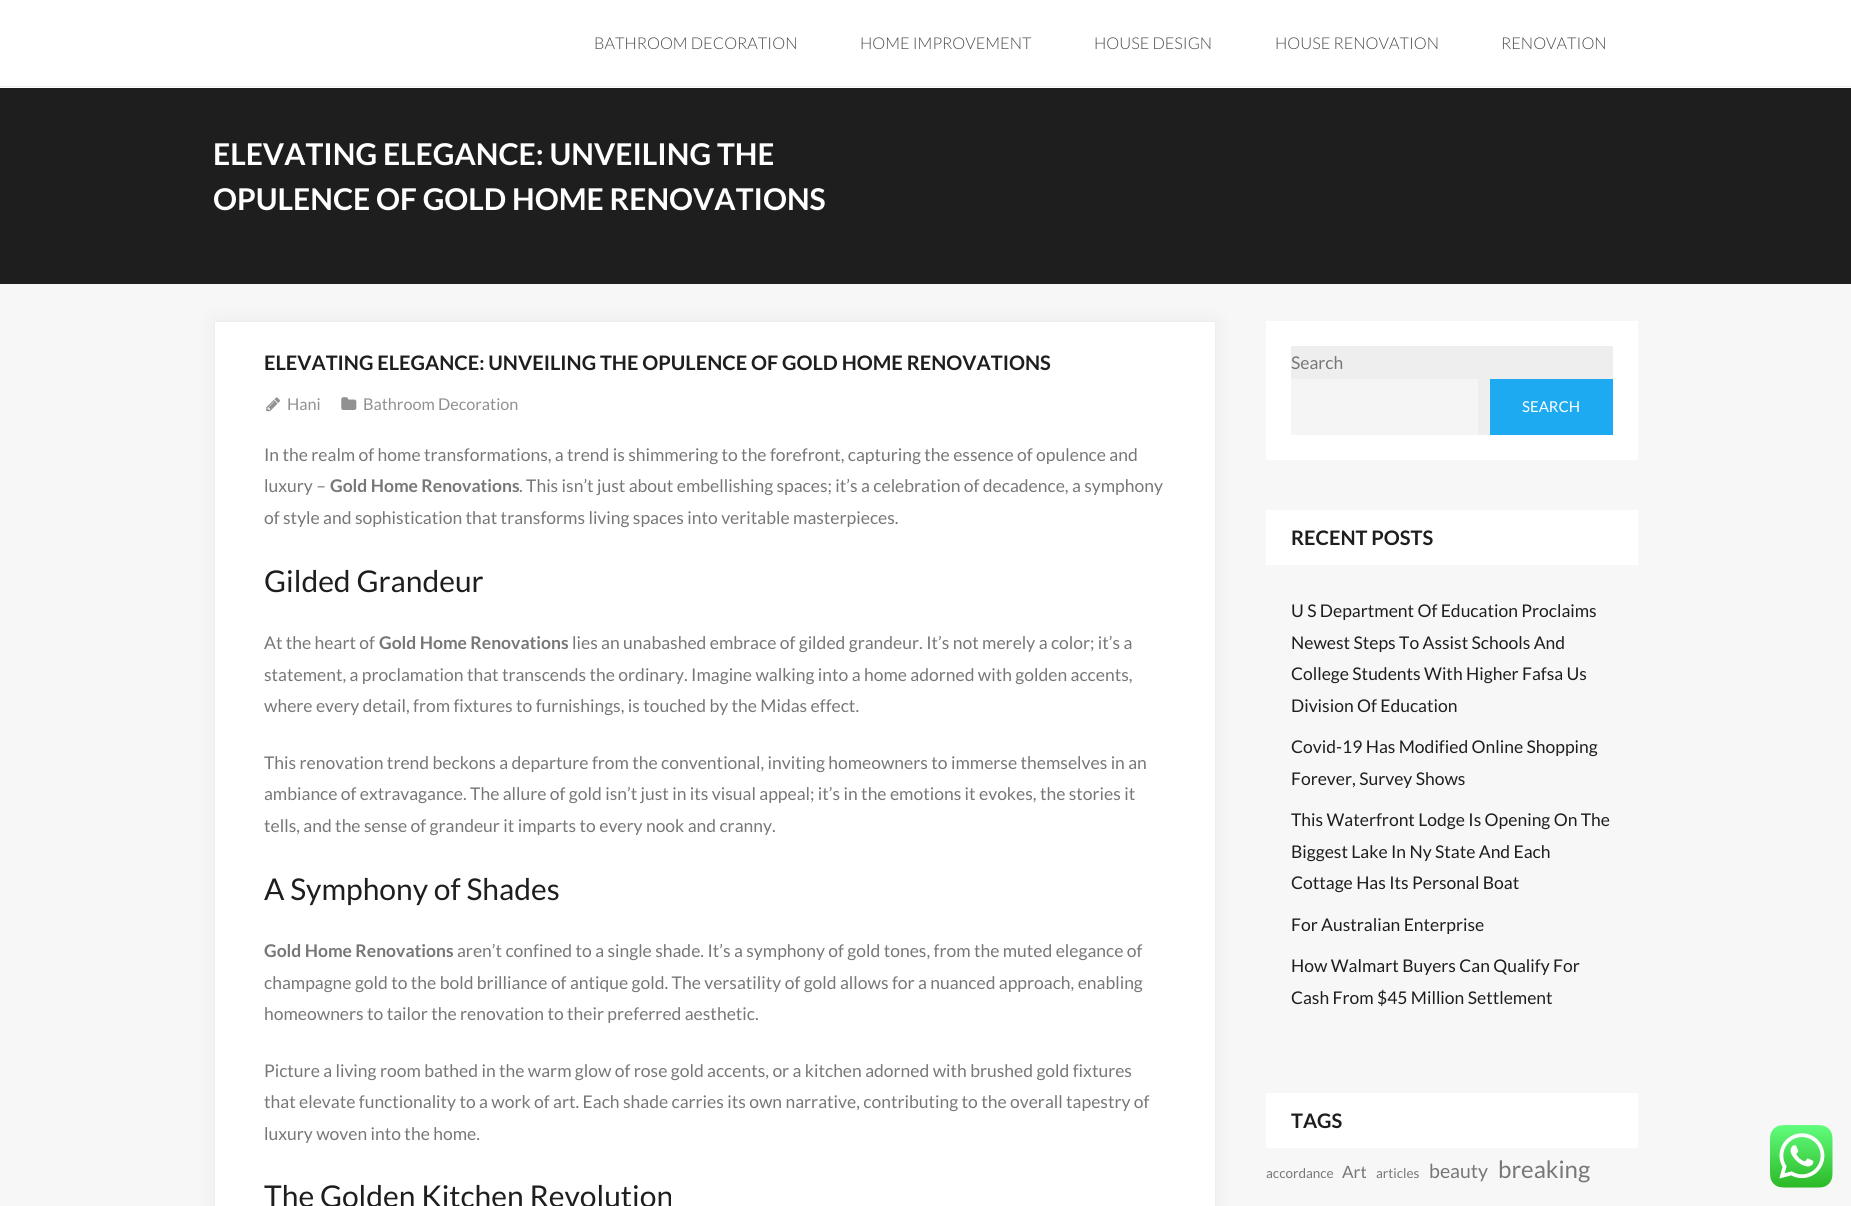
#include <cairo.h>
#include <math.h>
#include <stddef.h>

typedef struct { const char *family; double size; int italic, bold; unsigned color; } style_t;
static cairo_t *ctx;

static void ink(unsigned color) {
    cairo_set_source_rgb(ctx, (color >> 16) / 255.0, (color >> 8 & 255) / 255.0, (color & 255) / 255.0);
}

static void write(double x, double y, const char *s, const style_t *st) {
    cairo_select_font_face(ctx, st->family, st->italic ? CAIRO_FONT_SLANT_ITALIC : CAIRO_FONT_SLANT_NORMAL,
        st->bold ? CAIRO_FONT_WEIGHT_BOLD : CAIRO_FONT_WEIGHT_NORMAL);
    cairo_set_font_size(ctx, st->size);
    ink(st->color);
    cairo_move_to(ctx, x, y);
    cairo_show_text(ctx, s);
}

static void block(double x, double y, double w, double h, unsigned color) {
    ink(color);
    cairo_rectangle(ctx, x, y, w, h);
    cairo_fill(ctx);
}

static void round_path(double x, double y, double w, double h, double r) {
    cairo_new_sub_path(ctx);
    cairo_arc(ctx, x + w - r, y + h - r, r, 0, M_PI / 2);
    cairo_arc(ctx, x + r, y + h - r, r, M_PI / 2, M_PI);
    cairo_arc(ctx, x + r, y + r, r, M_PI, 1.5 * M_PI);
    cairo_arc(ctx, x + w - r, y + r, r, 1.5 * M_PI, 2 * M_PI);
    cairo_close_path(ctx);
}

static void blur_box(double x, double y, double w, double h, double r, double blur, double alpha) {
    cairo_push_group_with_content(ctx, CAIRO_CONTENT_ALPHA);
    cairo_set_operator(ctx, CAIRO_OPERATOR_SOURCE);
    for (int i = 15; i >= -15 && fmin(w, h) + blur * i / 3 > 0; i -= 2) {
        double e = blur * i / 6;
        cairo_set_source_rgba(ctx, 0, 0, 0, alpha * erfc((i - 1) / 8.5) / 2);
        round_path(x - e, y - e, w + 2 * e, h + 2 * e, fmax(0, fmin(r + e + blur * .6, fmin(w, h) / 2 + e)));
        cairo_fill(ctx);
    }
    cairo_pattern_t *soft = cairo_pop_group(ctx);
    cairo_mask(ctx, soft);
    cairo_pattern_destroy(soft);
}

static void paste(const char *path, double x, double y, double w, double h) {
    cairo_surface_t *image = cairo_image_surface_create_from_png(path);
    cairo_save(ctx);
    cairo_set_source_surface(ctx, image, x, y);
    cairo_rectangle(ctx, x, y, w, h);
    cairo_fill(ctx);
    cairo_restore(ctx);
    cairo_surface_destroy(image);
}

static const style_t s1 = {"Lato Light", 16.25, 0, 0, 0x4a4a4a};
static const style_t s2 = {"Lato", 30, 0, 1, 0xffffff};
static const style_t s3 = {"Lato", 20, 0, 1, 0x1e1e1e};
static const style_t s4 = {"Lato", 16.25, 0, 0, 0x919191};
static const style_t s5 = {"Lato", 17.5, 0, 0, 0x777777};
static const style_t s6 = {"Lato", 17.5, 0, 1, 0x777777};
static const style_t s7 = {"Lato", 30, 0, 0, 0x1e1e1e};
static const style_t s8 = {"Lato", 15, 0, 0, 0xffffff};
static const style_t s9 = {"Lato", 17.5, 0, 0, 0x1e1e1e};
static const style_t s10 = {"Lato", 13.5, 0, 0, 0x777777};
static const style_t s11 = {"Lato", 17, 0, 0, 0x777777};
static const style_t s12 = {"Lato", 19.5, 0, 0, 0x777777};
static const style_t s13 = {"Lato", 24, 0, 0, 0x777777};

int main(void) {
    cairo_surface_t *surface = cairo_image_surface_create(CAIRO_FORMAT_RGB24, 1851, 1206);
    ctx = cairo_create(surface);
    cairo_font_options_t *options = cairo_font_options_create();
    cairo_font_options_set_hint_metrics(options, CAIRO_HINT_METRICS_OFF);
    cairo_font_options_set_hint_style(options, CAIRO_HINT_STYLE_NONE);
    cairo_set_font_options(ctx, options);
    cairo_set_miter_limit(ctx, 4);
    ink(0xf7f7f7);
    cairo_paint(ctx);
    block(0, 0, 1851, 88, 0xffffff);
    block(0, 86, 1851, 1, 0xeeeeee);
    write(594, 49, "BATHROOM DECORATION", &s1);
    write(860, 49, "HOME IMPROVEMENT", &s1);
    write(1094, 49, "HOUSE DESIGN", &s1);
    write(1275, 49, "HOUSE RENOVATION", &s1);
    write(1501, 49, "RENOVATION", &s1);
    block(0, 88, 1851, 196, 0x1e1e1e);
    write(213, 165, "ELEVATING ELEGANCE: UNVEILING THE", &s2);
    write(213, 210, "OPULENCE OF GOLD HOME RENOVATIONS", &s2);
    ink(0x000000);
    blur_box(214, 321, 1002, 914, 0, 9.5, 0.05);
    ink(0xffffff);
    cairo_rectangle(ctx, 214.5, 321.5, 1001, 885);
    cairo_fill_preserve(ctx);
    ink(0xeeeeee);
    cairo_set_line_width(ctx, 1);
    cairo_stroke(ctx);
    write(264, 370, "ELEVATING ELEGANCE: UNVEILING THE OPULENCE OF GOLD HOME RENOVATIONS", &s3);
    paste("pic1.png", 266, 397, 14, 15);
    write(287, 410, "Hani", &s4);
    paste("pic2.png", 341, 397, 16, 13);
    write(363, 410, "Bathroom Decoration", &s4);
    write(264, 461, "In the realm of home transformations, a trend is shimmering to the forefront, capturing the essence of opulence and", &s5);
    write(264, 492, "luxury –", &s5);
    write(330, 492, "Gold Home Renovations", &s6);
    write(519, 492, ". This isn’t just about embellishing spaces; it’s a celebration of decadence, a symphony", &s5);
    write(264, 524, "of style and sophistication that transforms living spaces into veritable masterpieces.", &s5);
    write(264, 592, "Gilded Grandeur", &s7);
    write(264, 649, "At the heart of", &s5);
    write(379, 649, "Gold Home Renovations", &s6);
    write(572, 649, "lies an unabashed embrace of gilded grandeur. It’s not merely a color; it’s a", &s5);
    write(264, 681, "statement, a proclamation that transcends the ordinary. Imagine walking into a home adorned with golden accents,", &s5);
    write(264, 712, "where every detail, from fixtures to furnishings, is touched by the Midas effect.", &s5);
    write(264, 769, "This renovation trend beckons a departure from the conventional, inviting homeowners to immerse themselves in an", &s5);
    write(264, 800, "ambiance of extravagance. The allure of gold isn’t just in its visual appeal; it’s in the emotions it evokes, the stories it", &s5);
    write(264, 832, "tells, and the sense of grandeur it imparts to every nook and cranny.", &s5);
    write(264, 900, "A Symphony of Shades", &s7);
    write(264, 957, "Gold Home Renovations", &s6);
    write(457, 957, "aren’t confined to a single shade. It’s a symphony of gold tones, from the muted elegance of", &s5);
    write(264, 989, "champagne gold to the bold brilliance of antique gold. The versatility of gold allows for a nuanced approach, enabling", &s5);
    write(264, 1020, "homeowners to tailor the renovation to their preferred aesthetic.", &s5);
    write(264, 1077, "Picture a living room bathed in the warm glow of rose gold accents, or a kitchen adorned with brushed gold fixtures", &s5);
    write(264, 1108, "that elevate functionality to a work of art. Each shade carries its own narrative, contributing to the overall tapestry of", &s5);
    write(264, 1140, "luxury woven into the home.", &s5);
    write(264, 1207, "The Golden Kitchen Revolution", &s7);
    block(1266, 321, 372, 139, 0xffffff);
    block(1291, 346, 322, 89, 0xeeeeee);
    write(1291, 369, "Search", &s5);
    block(1291, 379, 187, 56, 0xf5f5f5);
    block(1490, 379, 123, 56, 0x1eaaf1);
    write(1522, 412, "SEARCH", &s8);
    block(1266, 510, 372, 55, 0xffffff);
    write(1291, 545, "RECENT POSTS", &s3);
    write(1291, 617, "U S Department Of Education Proclaims", &s9);
    write(1291, 649, "Newest Steps To Assist Schools And", &s9);
    write(1291, 680, "College Students With Higher Fafsa Us", &s9);
    write(1291, 712, "Division Of Education", &s9);
    write(1291, 753, "Covid-19 Has Modified Online Shopping", &s9);
    write(1291, 785, "Forever, Survey Shows", &s9);
    write(1291, 826, "This Waterfront Lodge Is Opening On The", &s9);
    write(1291, 858, "Biggest Lake In Ny State And Each", &s9);
    write(1291, 889, "Cottage Has Its Personal Boat", &s9);
    write(1291, 931, "For Australian Enterprise", &s9);
    write(1291, 972, "How Walmart Buyers Can Qualify For", &s9);
    write(1291, 1004, "Cash From $45 Million Settlement", &s9);
    block(1266, 1093, 372, 55, 0xffffff);
    write(1291, 1128, "TAGS", &s3);
    write(1266, 1178, "accordance", &s10);
    write(1342, 1178, "Art", &s11);
    write(1376, 1178, "articles", &s10);
    write(1429, 1178, "beauty", &s12);
    write(1498, 1178, "breaking", &s13);
    paste("pic3.png", 1770, 1125, 63, 63);
    cairo_surface_write_to_png(surface, "screenshot.png");
    cairo_font_options_destroy(options);
    cairo_destroy(ctx);
    cairo_surface_destroy(surface);
    return 0;
}
